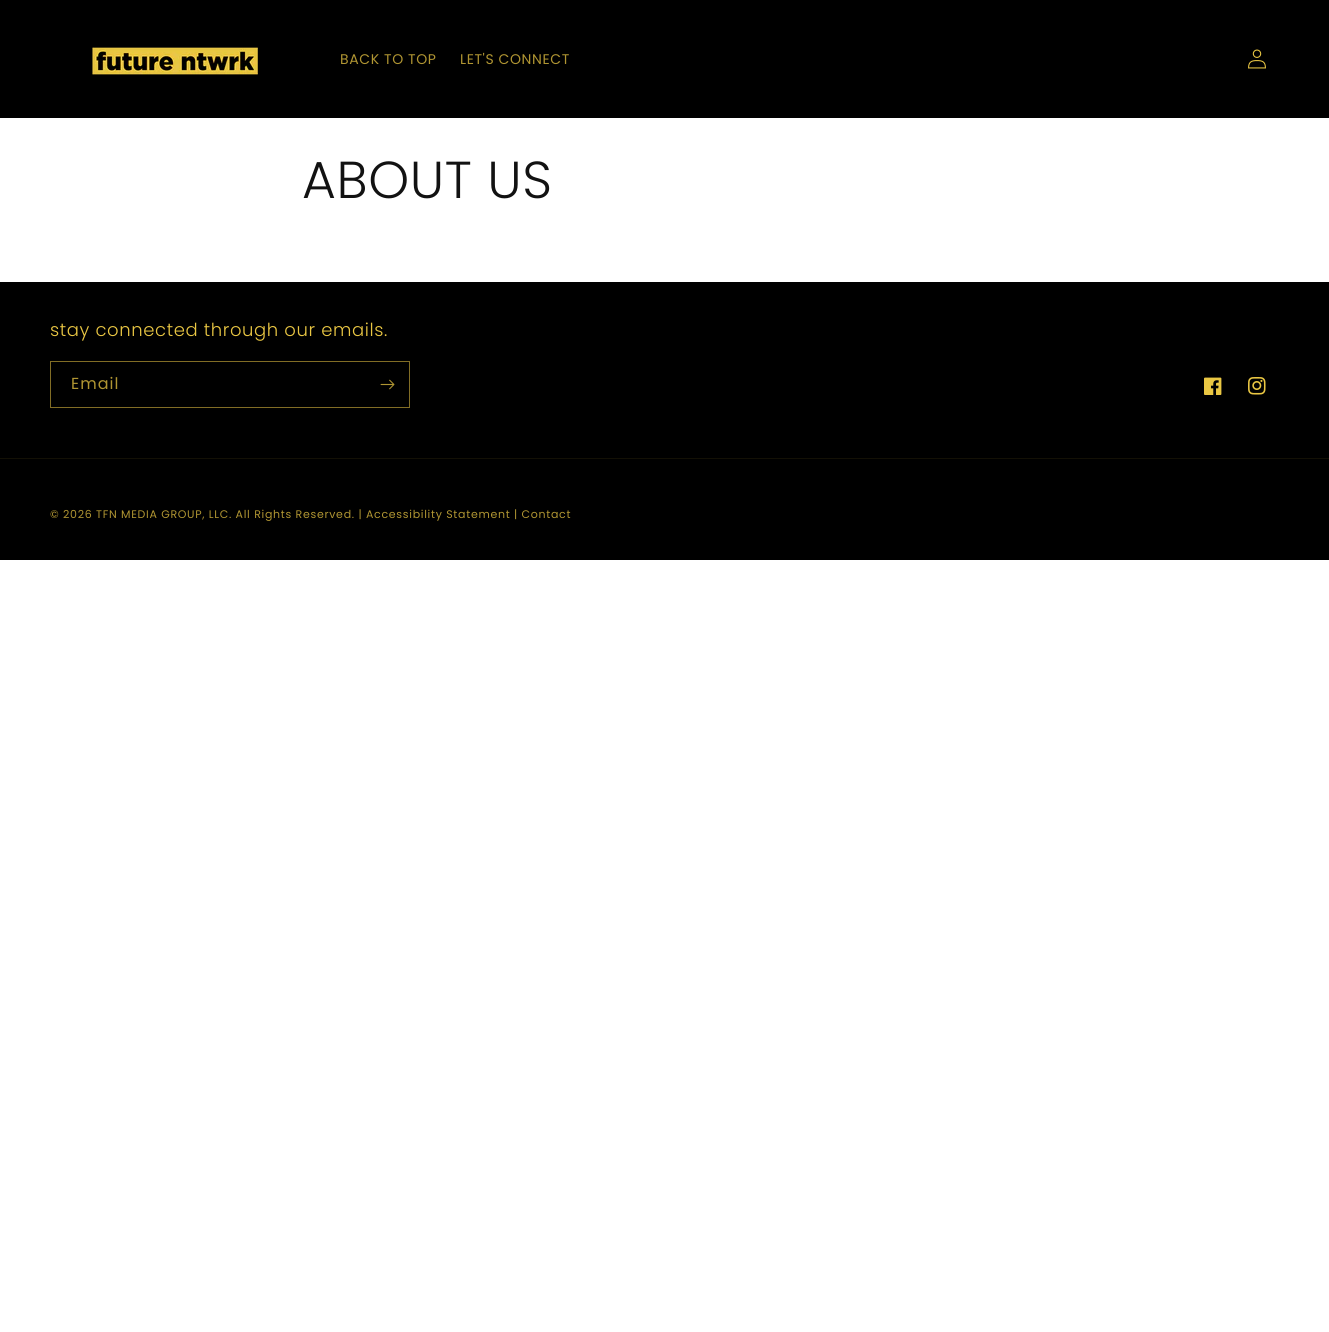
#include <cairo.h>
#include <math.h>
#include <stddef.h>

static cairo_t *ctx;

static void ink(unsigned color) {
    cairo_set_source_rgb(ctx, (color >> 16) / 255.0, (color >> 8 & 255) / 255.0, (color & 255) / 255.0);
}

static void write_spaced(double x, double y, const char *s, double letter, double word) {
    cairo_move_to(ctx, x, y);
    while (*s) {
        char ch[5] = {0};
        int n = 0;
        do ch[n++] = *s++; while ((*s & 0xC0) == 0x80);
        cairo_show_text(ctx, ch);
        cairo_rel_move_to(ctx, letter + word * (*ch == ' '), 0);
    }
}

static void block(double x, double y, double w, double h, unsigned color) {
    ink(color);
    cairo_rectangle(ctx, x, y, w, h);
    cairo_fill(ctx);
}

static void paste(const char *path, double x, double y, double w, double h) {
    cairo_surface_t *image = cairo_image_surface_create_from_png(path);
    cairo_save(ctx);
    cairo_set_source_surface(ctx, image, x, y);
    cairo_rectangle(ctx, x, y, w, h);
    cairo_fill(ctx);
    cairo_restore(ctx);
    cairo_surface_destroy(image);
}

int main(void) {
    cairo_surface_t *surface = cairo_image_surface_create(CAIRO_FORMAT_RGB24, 1329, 1332);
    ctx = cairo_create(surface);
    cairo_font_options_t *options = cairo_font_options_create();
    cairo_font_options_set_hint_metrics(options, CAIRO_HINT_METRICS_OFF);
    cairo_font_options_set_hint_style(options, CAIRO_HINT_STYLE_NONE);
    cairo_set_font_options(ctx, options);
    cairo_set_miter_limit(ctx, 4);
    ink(0xffffff);
    cairo_paint(ctx);
    block(0, 0, 1329, 118, 0x000000);
    paste("pic1.png", 92, 47, 166, 28);
    cairo_select_font_face(ctx, "Poppins", CAIRO_FONT_SLANT_NORMAL, CAIRO_FONT_WEIGHT_NORMAL);
    cairo_set_font_size(ctx, 14);
    ink(0xb09532);
    write_spaced(340, 64, "BACK TO TOP", 0.6, 0);
    write_spaced(460, 64, "LET'S CONNECT", 0.6, 0);
    paste("pic2.png", 1248, 49, 18, 20);
    cairo_select_font_face(ctx, "Poppins Light", CAIRO_FONT_SLANT_NORMAL, CAIRO_FONT_WEIGHT_NORMAL);
    cairo_set_font_size(ctx, 52);
    ink(0x121212);
    write_spaced(302, 198, "ABOUT US", 0.6, 0);
    block(0, 282, 1329, 278, 0x000000);
    cairo_set_font_size(ctx, 18);
    ink(0xeac743);
    write_spaced(50, 336, "stay connected through our emails.", 0.6, 0);
    cairo_rectangle(ctx, 50.5, 361.5, 359, 46);
    ink(0x816d25);
    cairo_set_line_width(ctx, 1);
    cairo_stroke(ctx);
    cairo_select_font_face(ctx, "Poppins", CAIRO_FONT_SLANT_NORMAL, CAIRO_FONT_WEIGHT_NORMAL);
    cairo_set_font_size(ctx, 16);
    ink(0xb09532);
    write_spaced(71, 389, "Email", 1, 0);
    paste("pic3.png", 380, 379, 15, 11);
    paste("pic4.png", 1204, 377, 18, 18);
    paste("pic5.png", 1248, 377, 18, 18);
    block(0, 458, 1329, 1, 0x131005);
    cairo_set_font_size(ctx, 11);
    ink(0xb09532);
    write_spaced(50, 518, "© 2026 TFN MEDIA GROUP, LLC. All Rights Reserved. | Accessibility Statement | Contact", 0.7, 0);
    cairo_surface_write_to_png(surface, "screenshot.png");
    cairo_font_options_destroy(options);
    cairo_destroy(ctx);
    cairo_surface_destroy(surface);
    return 0;
}
